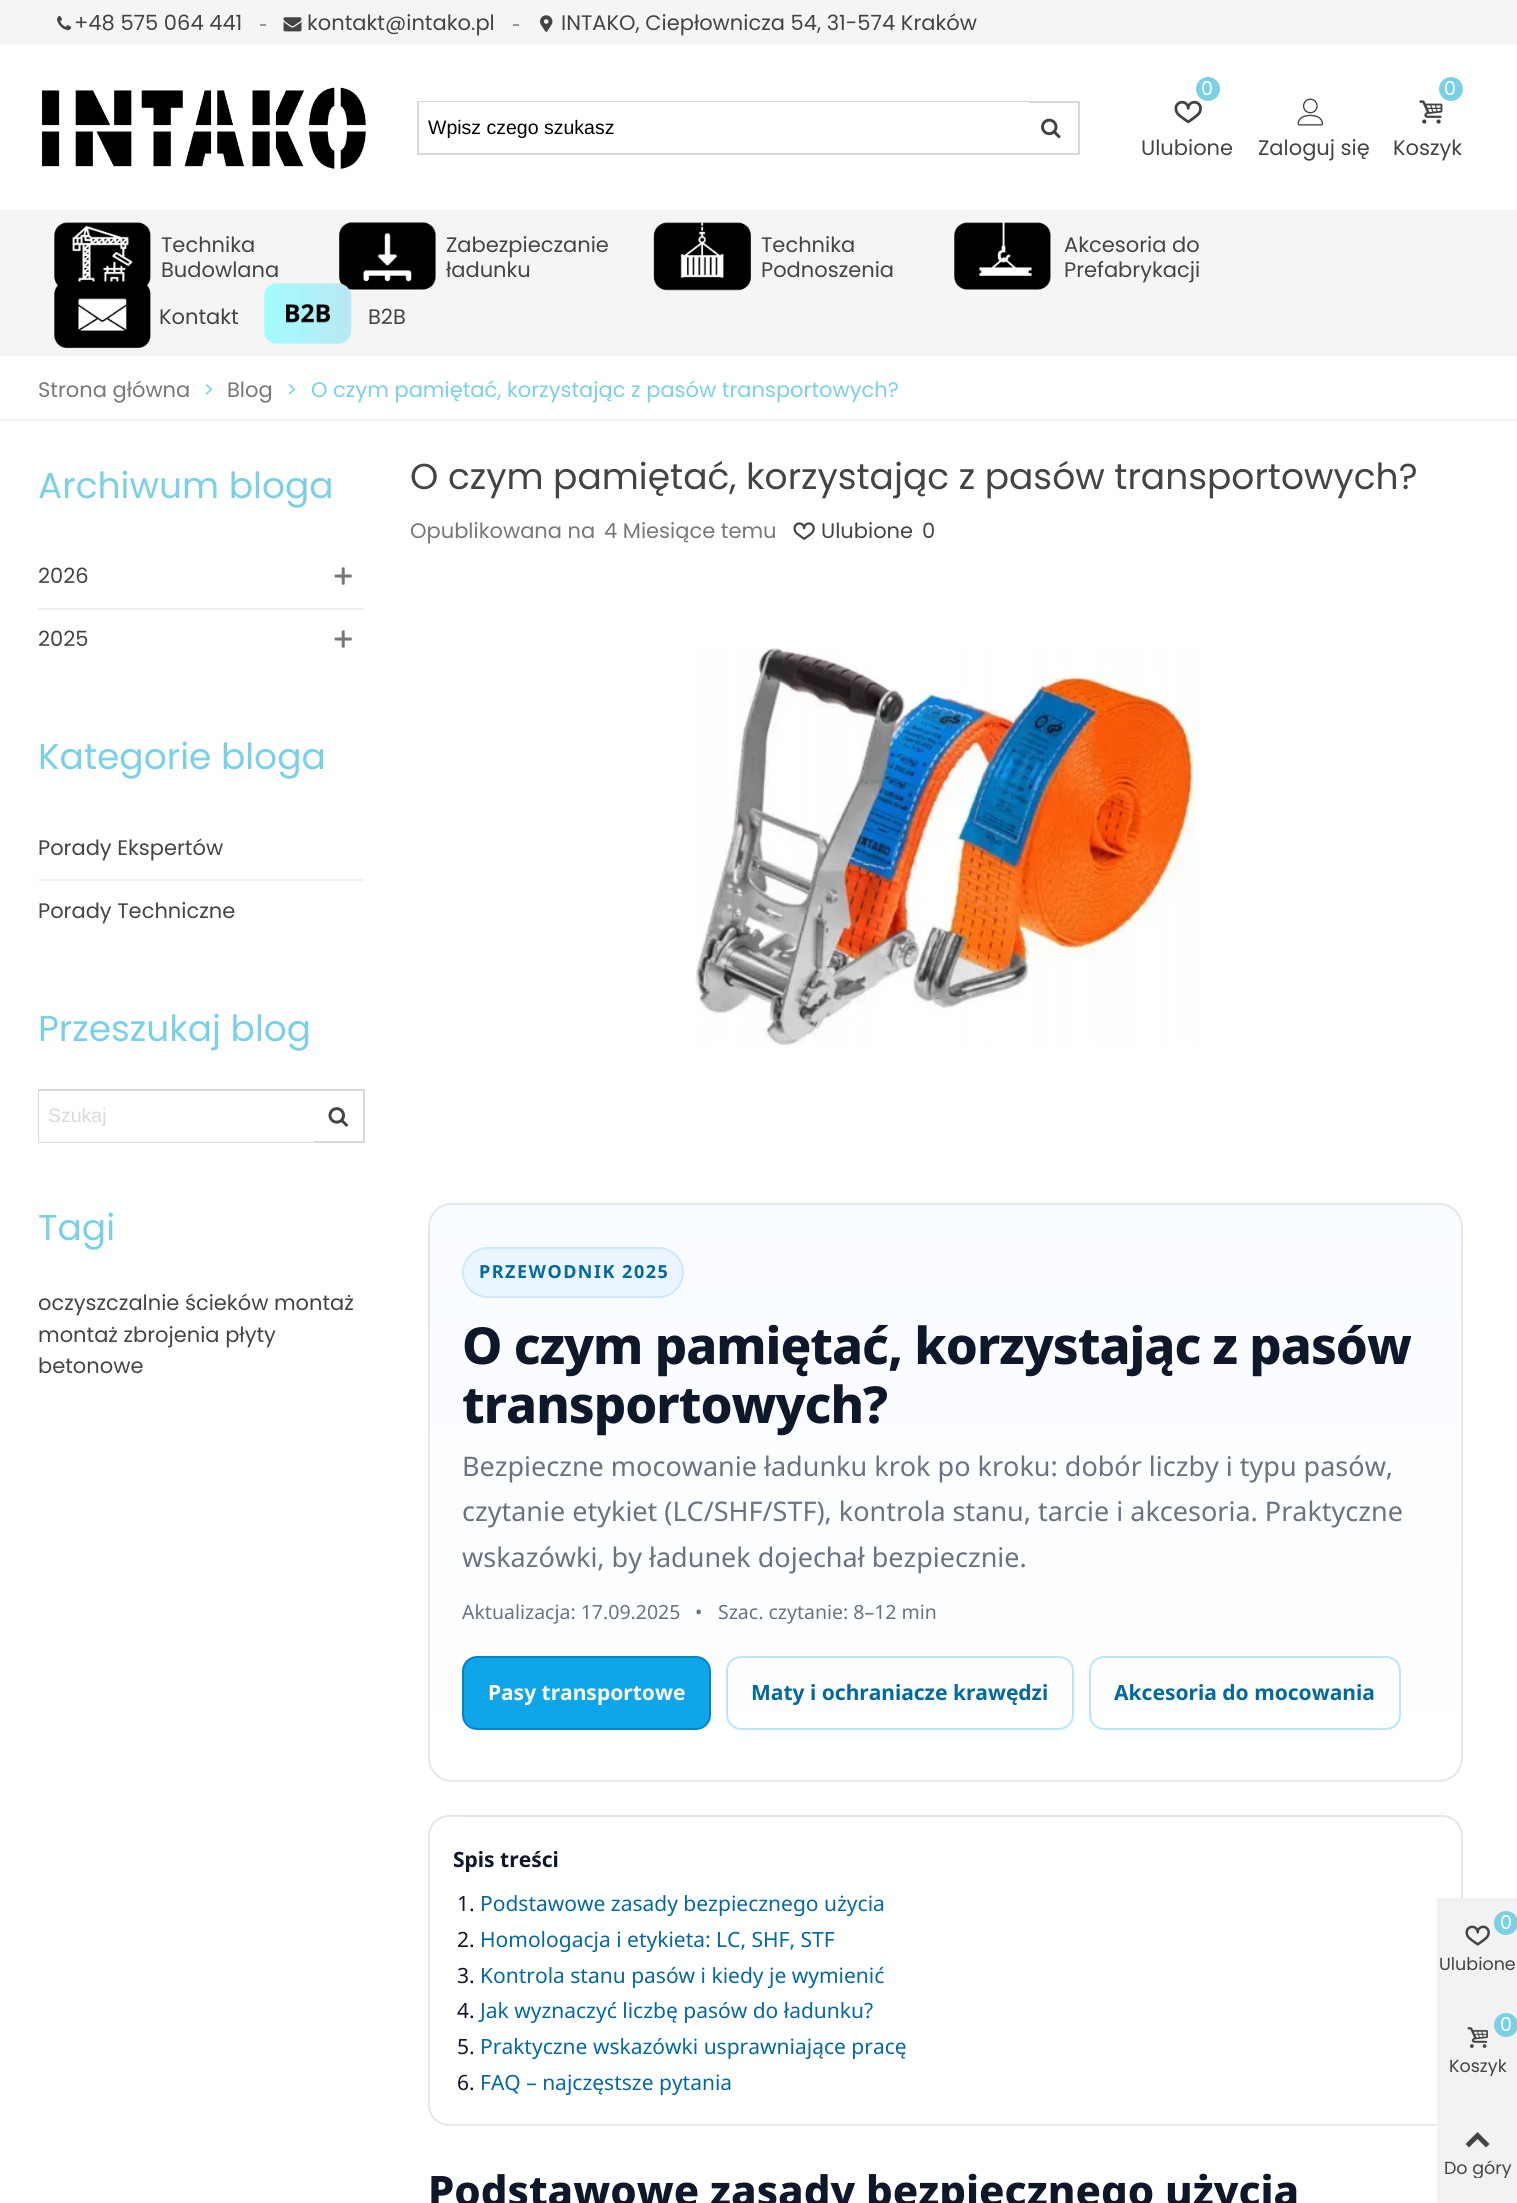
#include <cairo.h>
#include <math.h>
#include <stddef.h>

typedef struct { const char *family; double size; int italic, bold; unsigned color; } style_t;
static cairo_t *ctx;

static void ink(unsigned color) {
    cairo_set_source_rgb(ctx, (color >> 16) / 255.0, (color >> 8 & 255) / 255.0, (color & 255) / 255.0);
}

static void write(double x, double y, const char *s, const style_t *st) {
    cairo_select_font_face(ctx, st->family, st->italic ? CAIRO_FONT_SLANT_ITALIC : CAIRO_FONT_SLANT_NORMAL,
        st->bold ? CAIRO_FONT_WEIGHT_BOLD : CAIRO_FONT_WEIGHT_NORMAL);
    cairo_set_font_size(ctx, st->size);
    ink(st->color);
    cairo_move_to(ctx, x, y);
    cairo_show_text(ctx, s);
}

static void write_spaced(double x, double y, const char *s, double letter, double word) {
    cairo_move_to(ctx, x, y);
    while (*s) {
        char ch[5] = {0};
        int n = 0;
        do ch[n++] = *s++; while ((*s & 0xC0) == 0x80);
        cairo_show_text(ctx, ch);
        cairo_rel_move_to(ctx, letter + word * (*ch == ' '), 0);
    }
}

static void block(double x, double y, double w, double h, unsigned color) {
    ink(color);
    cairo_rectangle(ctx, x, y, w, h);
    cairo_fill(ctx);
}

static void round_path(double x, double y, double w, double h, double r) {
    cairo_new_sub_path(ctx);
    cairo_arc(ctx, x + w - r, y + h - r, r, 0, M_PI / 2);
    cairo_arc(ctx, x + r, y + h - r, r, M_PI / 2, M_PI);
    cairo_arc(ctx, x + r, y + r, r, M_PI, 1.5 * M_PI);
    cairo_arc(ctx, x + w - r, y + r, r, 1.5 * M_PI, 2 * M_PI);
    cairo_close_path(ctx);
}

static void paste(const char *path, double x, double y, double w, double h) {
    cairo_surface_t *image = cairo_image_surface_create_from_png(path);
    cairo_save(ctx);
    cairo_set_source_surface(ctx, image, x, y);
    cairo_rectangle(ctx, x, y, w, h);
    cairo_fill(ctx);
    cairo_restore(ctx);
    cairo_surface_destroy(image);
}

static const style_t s1 = {"Poppins", 21, 0, 0, 0x444444};
static const style_t s2 = {"Liberation Sans", 19.5, 0, 0, 0x000000};
static const style_t s3 = {"Poppins", 19, 0, 0, 0xffffff};
static const style_t s4 = {"Poppins", 21, 0, 0, 0x777777};
static const style_t s5 = {"Poppins", 21, 0, 0, 0x7ad0e4};
static const style_t s6 = {"Poppins", 36, 0, 0, 0x7ad0e4};
static const style_t s7 = {"Liberation Sans", 19.5, 0, 0, 0xdadada};
static const style_t s8 = {"Poppins", 36, 0, 0, 0x444444};
static const style_t s9 = {"Noto Sans", 27, 0, 0, 0x6b7280};
static const style_t s10 = {"Noto Sans", 19.5, 0, 0, 0x6b7280};
static const style_t s11 = {"Noto Sans", 21, 0, 1, 0xffffff};
static const style_t s12 = {"Noto Sans", 21, 0, 1, 0x0369a1};
static const style_t s13 = {"Noto Sans", 21, 0, 1, 0x0f172a};
static const style_t s14 = {"Noto Sans", 21, 0, 0, 0x0f172a};
static const style_t s15 = {"Noto Sans", 21, 0, 0, 0x0369a1};
static const style_t s16 = {"Noto Sans ExtraBold", 42, 0, 0, 0x0f172a};
static const style_t s17 = {"Poppins", 17.5, 0, 0, 0x444444};

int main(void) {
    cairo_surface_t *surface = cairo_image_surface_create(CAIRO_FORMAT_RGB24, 1517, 2203);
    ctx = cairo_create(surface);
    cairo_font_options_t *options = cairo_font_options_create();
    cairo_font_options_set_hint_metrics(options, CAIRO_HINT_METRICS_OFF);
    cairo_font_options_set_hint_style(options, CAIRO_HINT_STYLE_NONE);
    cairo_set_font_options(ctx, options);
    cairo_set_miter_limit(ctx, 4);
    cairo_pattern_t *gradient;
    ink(0xffffff);
    cairo_paint(ctx);
    block(0, 0, 1517, 45, 0xf5f5f5);
    paste("pic1.png", 57, 16, 15, 15);
    write(74, 30, "+48 575 064 441", &s1);
    block(260, 24, 6, 2, 0x999999);
    paste("pic2.png", 283, 17, 19, 15);
    write(307, 30, "kontakt@intako.pl", &s1);
    block(513, 24, 6, 2, 0x999999);
    paste("pic3.png", 540, 15, 13, 17);
    write(561, 30, "INTAKO, Ciepłownicza 54, 31-574 Kraków", &s1);
    paste("pic4.png", 41, 87, 325, 82);
    cairo_rectangle(ctx, 418, 102, 661, 52);
    ink(0xd9d9d9);
    cairo_stroke(ctx);
    block(419, 102, 610, 1, 0xffffff);
    write(428, 134, "Wpisz czego szukasz", &s2);
    paste("pic5.png", 1041, 118, 20, 21);
    paste("pic6.png", 1174, 100, 28, 24);
    ink(0x7ad0e4);
    cairo_arc(ctx, 1208, 89, 12, 0, 2 * M_PI);
    cairo_fill(ctx);
    write(1201, 95, "0", &s3);
    write(1141, 155, "Ulubione", &s1);
    paste("pic7.png", 1297, 98, 27, 28);
    write(1258, 155, "Zaloguj się", &s1);
    paste("pic8.png", 1419, 100, 24, 24);
    ink(0x7ad0e4);
    cairo_arc(ctx, 1451, 89, 12, 0, 2 * M_PI);
    cairo_fill(ctx);
    write(1444, 95, "0", &s3);
    write(1393, 155, "Koszyk", &s1);
    block(0, 210, 1517, 146, 0xf5f5f5);
    paste("pic9.png", 54, 222, 97, 64);
    write(161, 252, "Technika", &s1);
    write(161, 277, "Budowlana", &s1);
    paste("pic10.png", 339, 222, 97, 68);
    write(446, 252, "Zabezpieczanie", &s1);
    write(446, 277, "ładunku", &s1);
    paste("pic11.png", 653, 222, 98, 69);
    write(761, 252, "Technika", &s1);
    write(761, 277, "Podnoszenia", &s1);
    paste("pic12.png", 954, 222, 97, 68);
    write(1064, 252, "Akcesoria do", &s1);
    write(1064, 277, "Prefabrykacji", &s1);
    paste("pic13.png", 54, 281, 97, 68);
    write(159, 324, "Kontakt", &s1);
    paste("pic14.png", 263, 283, 89, 61);
    write(368, 324, "B2B", &s1);
    block(0, 419, 1517, 2, 0xf2f2f2);
    write(38, 397, "Strona główna", &s4);
    write(203, 397, ">", &s5);
    write(227, 397, "Blog", &s4);
    write(286, 397, ">", &s5);
    write(311, 397, "O czym pamiętać, korzystając z pasów transportowych?", &s5);
    write(38, 498, "Archiwum bloga", &s6);
    block(38, 608, 327, 2, 0xf2f2f2);
    write(38, 583, "2026", &s1);
    paste("pic15.png", 334, 567, 18, 18);
    write(38, 646, "2025", &s1);
    paste("pic15.png", 334, 630, 18, 18);
    write(38, 769, "Kategorie bloga", &s6);
    block(38, 879, 327, 2, 0xf2f2f2);
    write(38, 855, "Porady Ekspertów", &s1);
    write(38, 918, "Porady Techniczne", &s1);
    write(38, 1041, "Przeszukaj blog", &s6);
    cairo_rectangle(ctx, 39, 1090, 325, 52);
    ink(0xd9d9d9);
    cairo_stroke(ctx);
    block(39, 1091, 275, 51, 0xffffff);
    write(48, 1122, "Szukaj", &s7);
    paste("pic16.png", 328, 1107, 20, 20);
    write(38, 1240, "Tagi", &s6);
    write(38, 1310, "oczyszczalnie ścieków montaż", &s1);
    write(38, 1342, "montaż zbrojenia płyty", &s1);
    write(38, 1373, "betonowe", &s1);
    write(410, 489, "O czym pamiętać, korzystając z pasów transportowych?", &s8);
    write(410, 538, "Opublikowana na", &s4);
    write(604, 538, "4 Miesiące temu", &s4);
    paste("pic17.png", 793, 522, 22, 18);
    write(821, 538, "Ulubione", &s1);
    write(922, 538, "0", &s1);
    paste("pic18.png", 695, 648, 503, 399);
    cairo_save(ctx);
    round_path(428, 1203, 1035, 579, 24);
    cairo_clip(ctx);
    gradient = cairo_pattern_create_linear(945, 1205, 945, 1781);
    cairo_pattern_add_color_stop_rgba(gradient, 0, 0.973, 0.984, 1, 1);
    cairo_pattern_add_color_stop_rgba(gradient, 1, 1, 1, 1, 1);
    cairo_set_source(ctx, gradient);
    cairo_pattern_destroy(gradient);
    cairo_rectangle(ctx, 428, 1205, 1035, 576);
    cairo_fill(ctx);
    cairo_restore(ctx);
    round_path(429, 1204, 1033, 577, 23);
    ink(0xe5e7eb);
    cairo_stroke(ctx);
    ink(0xeaf5ff);
    round_path(463, 1248, 220, 49, 24.5);
    cairo_fill_preserve(ctx);
    ink(0xcfe8ff);
    cairo_stroke(ctx);
    cairo_select_font_face(ctx, "Noto Sans", CAIRO_FONT_SLANT_NORMAL, CAIRO_FONT_WEIGHT_BOLD);
    cairo_set_font_size(ctx, 18);
    ink(0x0369a1);
    write_spaced(479, 1278, "PRZEWODNIK 2025", 1.5, 0);
    cairo_select_font_face(ctx, "Noto Sans ExtraBold", CAIRO_FONT_SLANT_NORMAL, CAIRO_FONT_WEIGHT_NORMAL);
    cairo_set_font_size(ctx, 51);
    ink(0x0f172a);
    write_spaced(462, 1364, "O czym pamiętać, korzystając z pasów", -1, 0);
    write_spaced(462, 1423, "transportowych?", -1, 0);
    write(462, 1476, "Bezpieczne mocowanie ładunku krok po kroku: dobór liczby i typu pasów,", &s9);
    write(462, 1521, "czytanie etykiet (LC/SHF/STF), kontrola stanu, tarcie i akcesoria. Praktyczne", &s9);
    write(462, 1567, "wskazówki, by ładunek dojechał bezpiecznie.", &s9);
    write(462, 1619, "Aktualizacja: 17.09.2025", &s10);
    write(695, 1619, "•", &s10);
    write(718, 1619, "Szac. czytanie: 8–12 min", &s10);
    ink(0x0ea5e9);
    round_path(463, 1657, 247, 72, 14);
    cairo_fill_preserve(ctx);
    ink(0x0284c7);
    cairo_stroke(ctx);
    write(488, 1700, "Pasy transportowe", &s11);
    round_path(727, 1657, 346, 72, 14);
    ink(0xbae6fd);
    cairo_stroke(ctx);
    write(751, 1700, "Maty i ochraniacze krawędzi", &s12);
    round_path(1090, 1657, 310, 72, 14);
    ink(0xbae6fd);
    cairo_stroke(ctx);
    write(1114, 1700, "Akcesoria do mocowania", &s12);
    round_path(429, 1816, 1033, 309, 20);
    ink(0xe5e7eb);
    cairo_stroke(ctx);
    write(453, 1867, "Spis treści", &s13);
    write(457, 1911, "1.", &s14);
    write(480, 1911, "Podstawowe zasady bezpiecznego użycia", &s15);
    write(457, 1947, "2.", &s14);
    write(480, 1947, "Homologacja i etykieta: LC, SHF, STF", &s15);
    write(457, 1983, "3.", &s14);
    write(480, 1983, "Kontrola stanu pasów i kiedy je wymienić", &s15);
    write(457, 2018, "4.", &s14);
    write(480, 2018, "Jak wyznaczyć liczbę pasów do ładunku?", &s15);
    write(457, 2054, "5.", &s14);
    write(480, 2054, "Praktyczne wskazówki usprawniające pracę", &s15);
    write(457, 2090, "6.", &s14);
    write(480, 2090, "FAQ – najczęstsze pytania", &s15);
    write(428, 2206, "Podstawowe zasady bezpiecznego użycia", &s16);
    block(1437, 1898, 80, 305, 0xf2f2f2);
    ink(0x7ad0e4);
    cairo_new_path(ctx);
    cairo_arc(ctx, 1506, 1923, 12, 0, 2 * M_PI);
    cairo_fill(ctx);
    write(1500, 1929, "0", &s3);
    paste("pic19.png", 1465, 1925, 25, 21);
    write(1439, 1970, "Ulubione", &s17);
    ink(0x7ad0e4);
    cairo_new_path(ctx);
    cairo_arc(ctx, 1506, 2025, 12, 0, 2 * M_PI);
    cairo_fill(ctx);
    write(1500, 2031, "0", &s3);
    paste("pic20.png", 1467, 2027, 21, 21);
    cairo_save(ctx);
    cairo_rectangle(ctx, 1437, 2055, 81, 21);
    cairo_clip(ctx);
    write(1449, 2072, "Koszyk", &s17);
    cairo_restore(ctx);
    ink(0x444444);
    cairo_new_path(ctx);
    cairo_move_to(ctx, 1465.5, 2144);
    cairo_line_to(ctx, 1477.5, 2132);
    cairo_line_to(ctx, 1489.5, 2144);
    cairo_line_to(ctx, 1486, 2147.5);
    cairo_line_to(ctx, 1477.5, 2139);
    cairo_line_to(ctx, 1469, 2147.5);
    cairo_close_path(ctx);
    cairo_fill(ctx);
    cairo_save(ctx);
    cairo_rectangle(ctx, 1437, 2157, 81, 21);
    cairo_clip(ctx);
    write(1444, 2174, "Do góry", &s17);
    cairo_restore(ctx);
    cairo_surface_write_to_png(surface, "screenshot.png");
    cairo_font_options_destroy(options);
    cairo_destroy(ctx);
    cairo_surface_destroy(surface);
    return 0;
}
